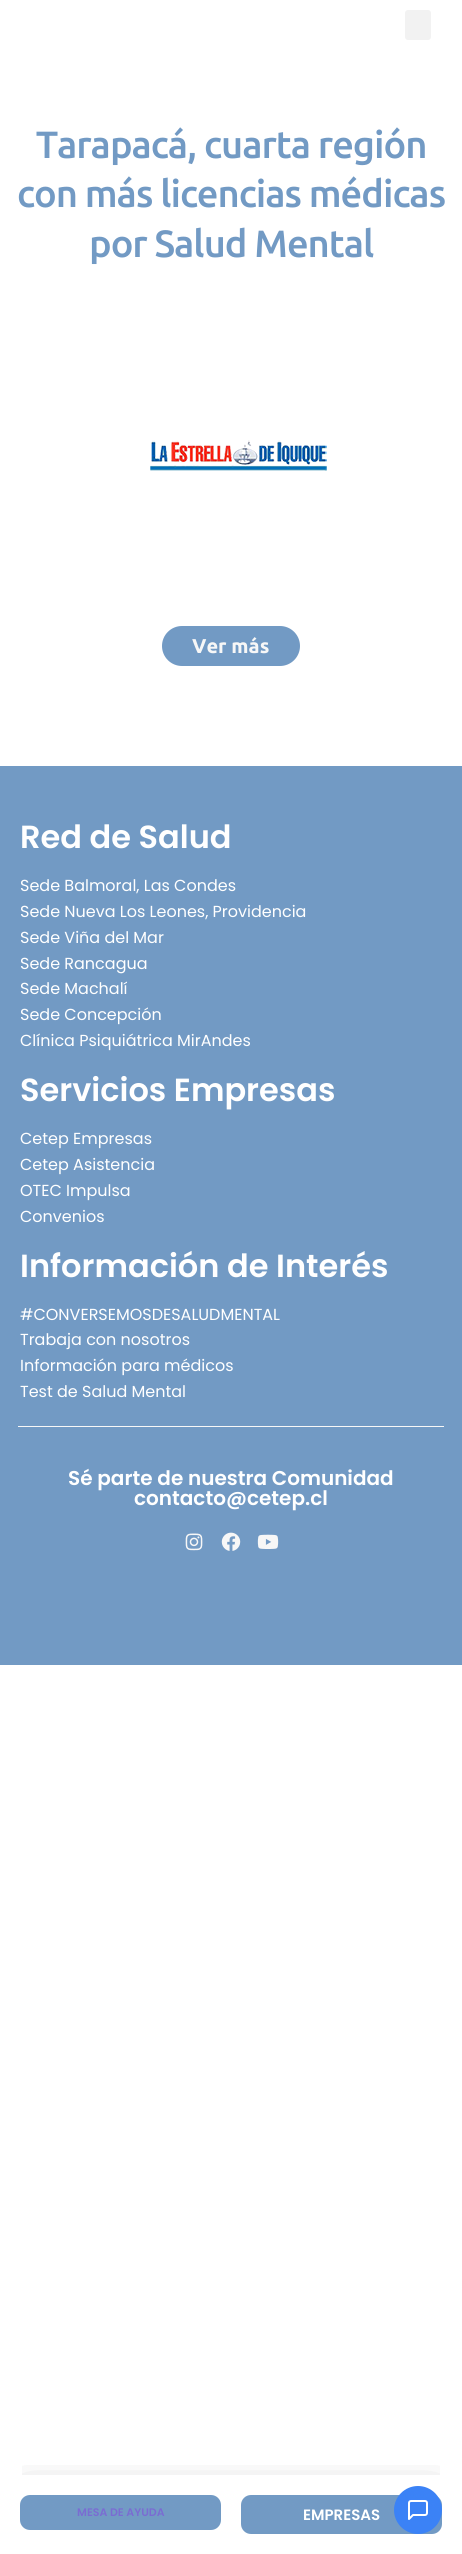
#include <cairo.h>
#include <math.h>
#include <stddef.h>

typedef struct { const char *family; double size; int italic, bold; unsigned color; } style_t;
static cairo_t *ctx;

static void ink(unsigned color) {
    cairo_set_source_rgb(ctx, (color >> 16) / 255.0, (color >> 8 & 255) / 255.0, (color & 255) / 255.0);
}

static void write(double x, double y, const char *s, const style_t *st) {
    cairo_select_font_face(ctx, st->family, st->italic ? CAIRO_FONT_SLANT_ITALIC : CAIRO_FONT_SLANT_NORMAL,
        st->bold ? CAIRO_FONT_WEIGHT_BOLD : CAIRO_FONT_WEIGHT_NORMAL);
    cairo_set_font_size(ctx, st->size);
    ink(st->color);
    cairo_move_to(ctx, x, y);
    cairo_show_text(ctx, s);
}

static void write_spaced(double x, double y, const char *s, double letter, double word) {
    cairo_move_to(ctx, x, y);
    while (*s) {
        char ch[5] = {0};
        int n = 0;
        do ch[n++] = *s++; while ((*s & 0xC0) == 0x80);
        cairo_show_text(ctx, ch);
        cairo_rel_move_to(ctx, letter + word * (*ch == ' '), 0);
    }
}

static void block(double x, double y, double w, double h, unsigned color) {
    ink(color);
    cairo_rectangle(ctx, x, y, w, h);
    cairo_fill(ctx);
}

static void round_path(double x, double y, double w, double h, double r) {
    cairo_new_sub_path(ctx);
    cairo_arc(ctx, x + w - r, y + h - r, r, 0, M_PI / 2);
    cairo_arc(ctx, x + r, y + h - r, r, M_PI / 2, M_PI);
    cairo_arc(ctx, x + r, y + r, r, M_PI, 1.5 * M_PI);
    cairo_arc(ctx, x + w - r, y + r, r, 1.5 * M_PI, 2 * M_PI);
    cairo_close_path(ctx);
}

static void blur_box(double x, double y, double w, double h, double r, double blur, double alpha) {
    cairo_push_group_with_content(ctx, CAIRO_CONTENT_ALPHA);
    cairo_set_operator(ctx, CAIRO_OPERATOR_SOURCE);
    for (int i = 15; i >= -15 && fmin(w, h) + blur * i / 3 > 0; i -= 2) {
        double e = blur * i / 6;
        cairo_set_source_rgba(ctx, 0, 0, 0, alpha * erfc((i - 1) / 8.5) / 2);
        round_path(x - e, y - e, w + 2 * e, h + 2 * e, fmax(0, fmin(r + e + blur * .6, fmin(w, h) / 2 + e)));
        cairo_fill(ctx);
    }
    cairo_pattern_t *soft = cairo_pop_group(ctx);
    cairo_mask(ctx, soft);
    cairo_pattern_destroy(soft);
}

static void paste(const char *path, double x, double y, double w, double h) {
    cairo_surface_t *image = cairo_image_surface_create_from_png(path);
    cairo_save(ctx);
    cairo_set_source_surface(ctx, image, x, y);
    cairo_rectangle(ctx, x, y, w, h);
    cairo_fill(ctx);
    cairo_restore(ctx);
    cairo_surface_destroy(image);
}

static const style_t s1 = {"Ubuntu", 20, 0, 1, 0xf7f7f7};
static const style_t s2 = {"Poppins SemiBold", 32, 0, 0, 0xffffff};
static const style_t s3 = {"Poppins", 16, 0, 0, 0xffffff};
static const style_t s4 = {"Poppins SemiBold", 20, 0, 0, 0xffffff};
static const style_t s5 = {"Poppins SemiBold", 11, 0, 0, 0x7a6cd2};
static const style_t s6 = {"Poppins SemiBold", 15, 0, 0, 0xffffff};

int main(void) {
    cairo_surface_t *surface = cairo_image_surface_create(CAIRO_FORMAT_RGB24, 462, 2554);
    ctx = cairo_create(surface);
    cairo_font_options_t *options = cairo_font_options_create();
    cairo_font_options_set_hint_metrics(options, CAIRO_HINT_METRICS_OFF);
    cairo_font_options_set_hint_style(options, CAIRO_HINT_STYLE_NONE);
    cairo_set_font_options(ctx, options);
    cairo_set_miter_limit(ctx, 4);
    ink(0xffffff);
    cairo_paint(ctx);
    cairo_select_font_face(ctx, "Ubuntu Medium", CAIRO_FONT_SLANT_NORMAL, CAIRO_FONT_WEIGHT_NORMAL);
    cairo_set_font_size(ctx, 38);
    ink(0x729ac4);
    write_spaced(36, 158, "Tarapacá, cuarta región", -1, 0);
    write_spaced(17, 207, "con más licencias médicas", -1, 0);
    write_spaced(89, 257, "por Salud Mental", -1, 0);
    paste("pic1.png", 150, 440, 177, 31);
    round_path(162, 626, 138, 40, 20);
    cairo_fill(ctx);
    write(192, 653, "Ver más", &s1);
    block(0, 766, 462, 899, 0x729ac4);
    write(20, 848, "Red de Salud", &s2);
    write(20, 891, "Sede Balmoral, Las Condes", &s3);
    write(20, 917, "Sede Nueva Los Leones, Providencia", &s3);
    write(20, 943, "Sede Viña del Mar", &s3);
    write(20, 969, "Sede Rancagua", &s3);
    write(20, 994, "Sede Machalí", &s3);
    write(20, 1020, "Sede Concepción", &s3);
    write(20, 1046, "Clínica Psiquiátrica MirAndes", &s3);
    write(20, 1101, "Servicios Empresas", &s2);
    write(20, 1144, "Cetep Empresas", &s3);
    write(20, 1170, "Cetep Asistencia", &s3);
    write(20, 1196, "OTEC Impulsa", &s3);
    write(20, 1222, "Convenios", &s3);
    write(20, 1277, "Información de Interés", &s2);
    write(20, 1320, "#CONVERSEMOSDESALUDMENTAL", &s3);
    write(20, 1345, "Trabaja con nosotros", &s3);
    write(20, 1371, "Información para médicos", &s3);
    write(20, 1397, "Test de Salud Mental", &s3);
    block(18, 1426, 426, 1, 0xf7f7f7);
    write(68, 1485, "Sé parte de nuestra Comunidad", &s4);
    write(134, 1505, "contacto@cetep.cl", &s4);
    paste("pic2.png", 185, 1533, 18, 18);
    paste("pic3.png", 221, 1532, 20, 19);
    paste("pic4.png", 257, 1534, 22, 15);
    ink(0xf2f2f2);
    round_path(405, 10, 26, 30, 3);
    cairo_fill(ctx);
    cairo_save(ctx);
    cairo_rectangle(ctx, 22, 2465, 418, 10);
    cairo_clip(ctx);
    ink(0x000000);
    blur_box(26, 2501, 410, 27, 0, 20.5, 0.5);
    cairo_restore(ctx);
    ink(0x729ac4);
    round_path(20, 2495, 201, 35, 10);
    cairo_fill(ctx);
    write(77, 2516, "MESA DE AYUDA", &s5);
    ink(0x729ac4);
    round_path(241, 2495, 201, 39, 10);
    cairo_fill(ctx);
    write(303, 2520, "EMPRESAS", &s6);
    ink(0x3b82f6);
    cairo_new_path(ctx);
    cairo_arc(ctx, 418, 2510, 24, 0, 2 * M_PI);
    cairo_fill(ctx);
    paste("pic5.png", 408, 2500, 20, 20);
    cairo_surface_write_to_png(surface, "screenshot.png");
    cairo_font_options_destroy(options);
    cairo_destroy(ctx);
    cairo_surface_destroy(surface);
    return 0;
}
